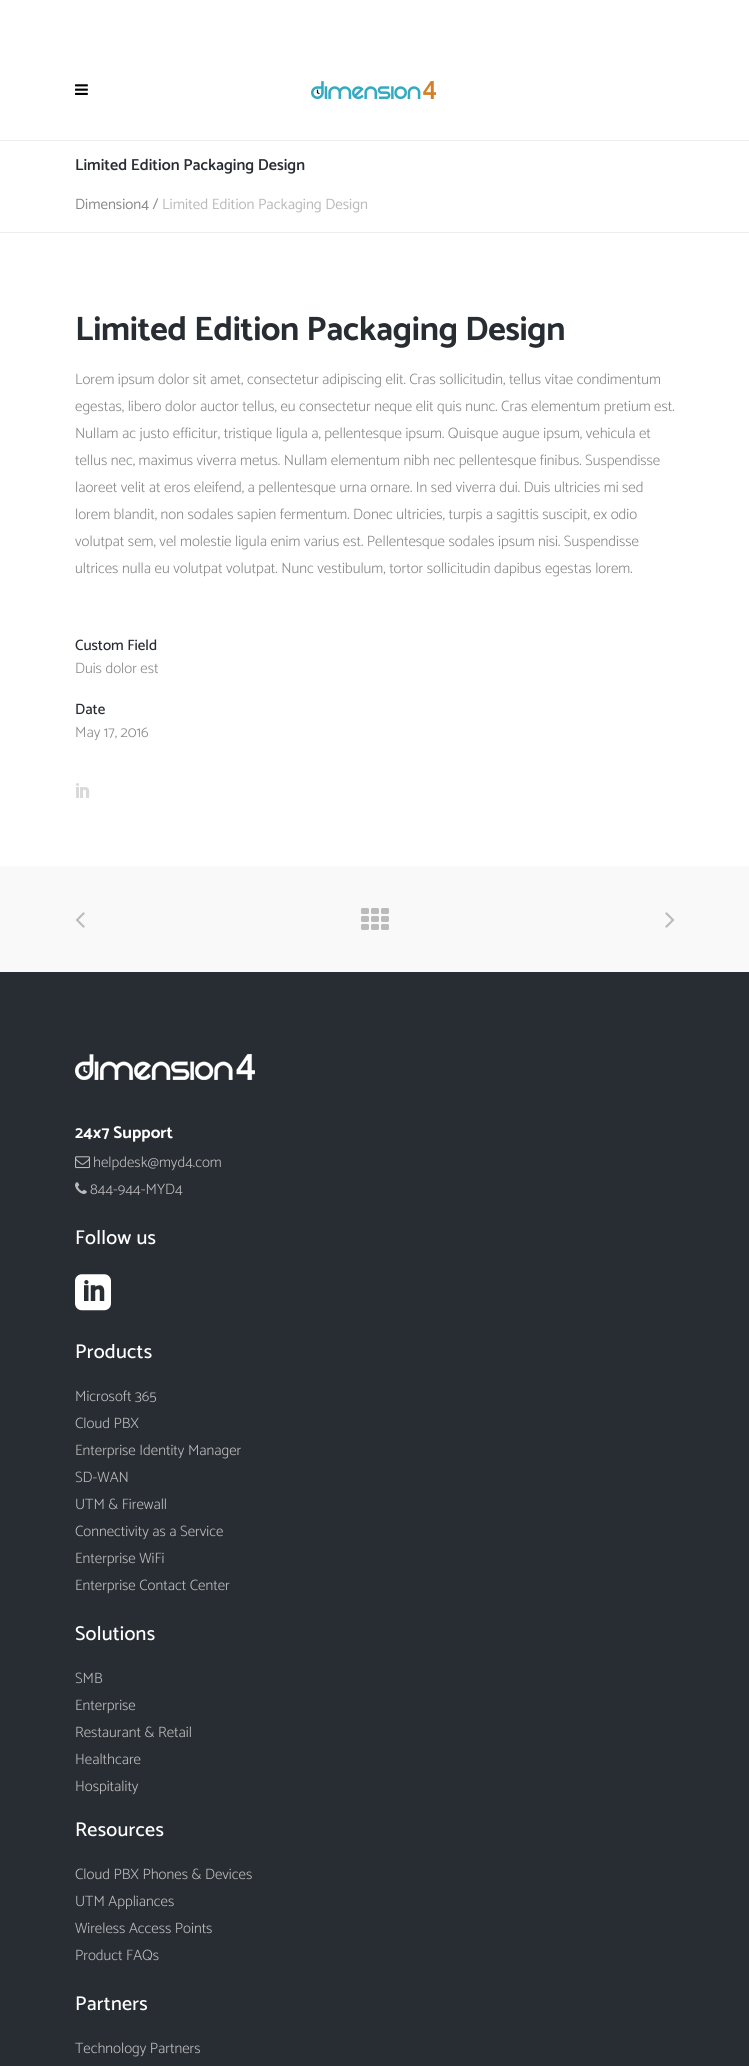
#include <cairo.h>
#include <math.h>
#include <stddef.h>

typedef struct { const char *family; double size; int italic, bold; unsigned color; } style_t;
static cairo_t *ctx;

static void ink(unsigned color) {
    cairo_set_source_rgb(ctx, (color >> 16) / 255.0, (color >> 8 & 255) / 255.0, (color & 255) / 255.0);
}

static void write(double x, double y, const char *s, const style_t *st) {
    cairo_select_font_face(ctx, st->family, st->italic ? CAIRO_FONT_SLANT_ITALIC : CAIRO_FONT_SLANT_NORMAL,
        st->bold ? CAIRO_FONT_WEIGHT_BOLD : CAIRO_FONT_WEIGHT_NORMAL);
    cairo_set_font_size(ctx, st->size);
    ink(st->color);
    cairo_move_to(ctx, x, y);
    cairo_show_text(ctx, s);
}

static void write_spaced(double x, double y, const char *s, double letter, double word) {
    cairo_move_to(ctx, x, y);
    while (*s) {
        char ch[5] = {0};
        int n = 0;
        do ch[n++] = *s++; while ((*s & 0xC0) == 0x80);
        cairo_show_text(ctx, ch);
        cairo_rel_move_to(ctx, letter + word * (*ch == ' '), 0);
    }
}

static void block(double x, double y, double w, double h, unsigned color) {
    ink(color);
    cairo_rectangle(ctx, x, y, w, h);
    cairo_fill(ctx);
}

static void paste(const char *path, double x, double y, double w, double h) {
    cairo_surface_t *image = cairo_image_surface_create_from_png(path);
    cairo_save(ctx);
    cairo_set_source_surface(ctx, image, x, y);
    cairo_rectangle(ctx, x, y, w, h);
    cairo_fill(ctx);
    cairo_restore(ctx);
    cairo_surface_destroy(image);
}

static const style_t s1 = {"Catamaran SemiBold", 16, 0, 0, 0x282d33};
static const style_t s2 = {"Catamaran", 15, 0, 0, 0x898989};
static const style_t s3 = {"Catamaran", 15, 0, 0, 0xbbbbbb};
static const style_t s4 = {"Catamaran Light", 15, 0, 0, 0x898989};
static const style_t s5 = {"Catamaran Medium", 15, 0, 0, 0x282d33};
static const style_t s6 = {"Catamaran", 17, 0, 1, 0xffffff};
static const style_t s7 = {"Catamaran Light", 15, 0, 0, 0xbbbbbb};

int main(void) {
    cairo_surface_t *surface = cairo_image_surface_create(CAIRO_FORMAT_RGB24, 749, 2066);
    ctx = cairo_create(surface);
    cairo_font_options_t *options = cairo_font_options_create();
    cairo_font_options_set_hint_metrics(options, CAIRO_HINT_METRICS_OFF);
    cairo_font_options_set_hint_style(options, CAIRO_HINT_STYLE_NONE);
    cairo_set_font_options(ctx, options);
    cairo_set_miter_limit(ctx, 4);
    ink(0xffffff);
    cairo_paint(ctx);
    paste("pic1.png", 75, 84, 13, 11);
    paste("pic2.png", 311, 81, 125, 18);
    block(0, 140, 749, 1, 0xeeeeee);
    block(0, 232, 749, 1, 0xeeeeee);
    write(75, 170, "Limited Edition Packaging Design", &s1);
    write(75, 209, "Dimension4 /", &s2);
    write(162, 209, "Limited Edition Packaging Design", &s3);
    cairo_select_font_face(ctx, "Catamaran", CAIRO_FONT_SLANT_NORMAL, CAIRO_FONT_WEIGHT_BOLD);
    cairo_set_font_size(ctx, 34);
    ink(0x282d33);
    write_spaced(75, 340, "Limited Edition Packaging Design", -0.3, 0);
    write(75, 384, "Lorem ipsum dolor sit amet, consectetur adipiscing elit. Cras sollicitudin, tellus vitae condimentum", &s4);
    write(75, 411, "egestas, libero dolor auctor tellus, eu consectetur neque elit quis nunc. Cras elementum pretium est.", &s4);
    write(75, 438, "Nullam ac justo efficitur, tristique ligula a, pellentesque ipsum. Quisque augue ipsum, vehicula et", &s4);
    write(75, 465, "tellus nec, maximus viverra metus. Nullam elementum nibh nec pellentesque finibus. Suspendisse", &s4);
    write(75, 492, "laoreet velit at eros eleifend, a pellentesque urna ornare. In sed viverra dui. Duis ultricies mi sed", &s4);
    write(75, 519, "lorem blandit, non sodales sapien fermentum. Donec ultricies, turpis a sagittis suscipit, ex odio", &s4);
    write(75, 546, "volutpat sem, vel molestie ligula enim varius est. Pellentesque sodales ipsum nisi. Suspendisse", &s4);
    write(75, 573, "ultrices nulla eu volutpat volutpat. Nunc vestibulum, tortor sollicitudin dapibus egestas lorem.", &s4);
    write(75, 650, "Custom Field", &s5);
    write(75, 673, "Duis dolor est", &s4);
    write(75, 714, "Date", &s5);
    write(75, 737, "May 17, 2016", &s4);
    paste("pic3.png", 76, 783, 14, 15);
    block(0, 866, 749, 106, 0xf9f9f9);
    paste("pic4.png", 75, 912, 10, 16);
    paste("pic5.png", 361, 908, 28, 22);
    paste("pic6.png", 665, 912, 10, 16);
    block(0, 972, 749, 1094, 0x282d33);
    paste("pic7.png", 75, 1054, 180, 26);
    write(75, 1138, "24x7 Support", &s6);
    paste("pic8.png", 75, 1156, 15, 13);
    write(93, 1167, "helpdesk@myd4.com", &s7);
    paste("pic9.png", 75, 1182, 12, 12);
    write(90, 1194, "844-944-MYD4", &s7);
    cairo_select_font_face(ctx, "Catamaran Medium", CAIRO_FONT_SLANT_NORMAL, CAIRO_FONT_WEIGHT_NORMAL);
    cairo_set_font_size(ctx, 20);
    ink(0xffffff);
    write_spaced(75, 1244, "Follow us", 0.25, 0);
    paste("pic10.png", 75, 1274, 36, 37);
    write_spaced(75, 1358, "Products", 0.25, 0);
    write(75, 1401, "Microsoft 365", &s7);
    write(75, 1428, "Cloud PBX", &s7);
    write(75, 1455, "Enterprise Identity Manager", &s7);
    write(75, 1482, "SD-WAN", &s7);
    write(75, 1509, "UTM & Firewall", &s7);
    write(75, 1536, "Connectivity as a Service", &s7);
    write(75, 1563, "Enterprise WiFi", &s7);
    write(75, 1590, "Enterprise Contact Center", &s7);
    cairo_select_font_face(ctx, "Catamaran Medium", CAIRO_FONT_SLANT_NORMAL, CAIRO_FONT_WEIGHT_NORMAL);
    cairo_set_font_size(ctx, 20);
    ink(0xffffff);
    write_spaced(75, 1640, "Solutions", 0.25, 0);
    write(75, 1683, "SMB", &s7);
    write(75, 1710, "Enterprise", &s7);
    write(75, 1737, "Restaurant & Retail", &s7);
    write(75, 1764, "Healthcare", &s7);
    write(75, 1791, "Hospitality", &s7);
    cairo_select_font_face(ctx, "Catamaran Medium", CAIRO_FONT_SLANT_NORMAL, CAIRO_FONT_WEIGHT_NORMAL);
    cairo_set_font_size(ctx, 20);
    ink(0xffffff);
    write_spaced(75, 1836, "Resources", 0.25, 0);
    write(75, 1879, "Cloud PBX Phones & Devices", &s7);
    write(75, 1906, "UTM Appliances", &s7);
    write(75, 1933, "Wireless Access Points", &s7);
    write(75, 1960, "Product FAQs", &s7);
    cairo_select_font_face(ctx, "Catamaran Medium", CAIRO_FONT_SLANT_NORMAL, CAIRO_FONT_WEIGHT_NORMAL);
    cairo_set_font_size(ctx, 20);
    ink(0xffffff);
    write_spaced(75, 2010, "Partners", 0.25, 0);
    write(75, 2053, "Technology Partners", &s7);
    cairo_surface_write_to_png(surface, "screenshot.png");
    cairo_font_options_destroy(options);
    cairo_destroy(ctx);
    cairo_surface_destroy(surface);
    return 0;
}
